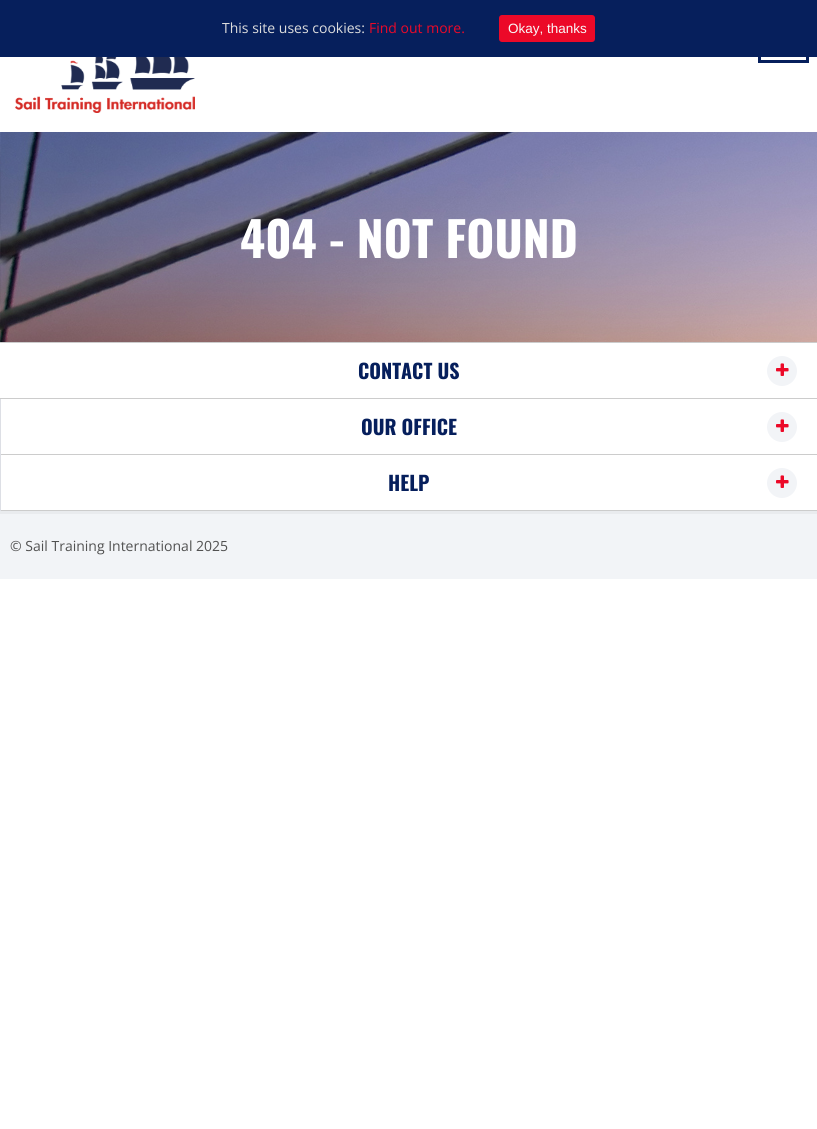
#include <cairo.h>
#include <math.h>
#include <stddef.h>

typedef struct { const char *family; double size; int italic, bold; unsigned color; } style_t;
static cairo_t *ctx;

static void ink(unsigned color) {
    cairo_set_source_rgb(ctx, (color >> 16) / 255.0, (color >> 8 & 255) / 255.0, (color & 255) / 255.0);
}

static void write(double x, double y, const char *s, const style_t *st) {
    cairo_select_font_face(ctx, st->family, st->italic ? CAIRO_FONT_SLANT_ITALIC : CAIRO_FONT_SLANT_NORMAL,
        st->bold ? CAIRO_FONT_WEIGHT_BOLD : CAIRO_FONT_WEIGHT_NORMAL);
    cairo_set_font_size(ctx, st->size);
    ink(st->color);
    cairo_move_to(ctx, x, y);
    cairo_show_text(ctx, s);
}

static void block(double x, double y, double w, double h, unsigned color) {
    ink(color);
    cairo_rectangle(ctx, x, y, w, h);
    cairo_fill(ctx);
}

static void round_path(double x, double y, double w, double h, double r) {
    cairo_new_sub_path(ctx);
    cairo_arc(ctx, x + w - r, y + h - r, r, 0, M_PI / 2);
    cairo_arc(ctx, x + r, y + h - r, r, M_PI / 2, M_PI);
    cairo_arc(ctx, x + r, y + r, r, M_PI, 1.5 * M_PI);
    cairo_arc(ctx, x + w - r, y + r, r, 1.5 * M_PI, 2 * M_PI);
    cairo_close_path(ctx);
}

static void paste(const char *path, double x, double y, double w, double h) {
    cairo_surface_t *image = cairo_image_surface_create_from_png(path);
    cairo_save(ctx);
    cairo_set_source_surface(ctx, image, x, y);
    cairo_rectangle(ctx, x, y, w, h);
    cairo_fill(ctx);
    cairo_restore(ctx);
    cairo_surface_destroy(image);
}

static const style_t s1 = {"Open Sans", 14, 0, 0, 0xdddddd};
static const style_t s2 = {"Open Sans", 14, 0, 0, 0xec0928};
static const style_t s3 = {"Liberation Sans", 13.5, 0, 0, 0xf9f9f9};
static const style_t s4 = {"Oswald", 48, 0, 1, 0xffffff};
static const style_t s5 = {"Oswald", 20, 0, 1, 0x061f5c};
static const style_t s6 = {"Open Sans", 14, 0, 0, 0x515151};

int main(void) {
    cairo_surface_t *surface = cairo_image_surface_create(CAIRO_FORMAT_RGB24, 817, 1129);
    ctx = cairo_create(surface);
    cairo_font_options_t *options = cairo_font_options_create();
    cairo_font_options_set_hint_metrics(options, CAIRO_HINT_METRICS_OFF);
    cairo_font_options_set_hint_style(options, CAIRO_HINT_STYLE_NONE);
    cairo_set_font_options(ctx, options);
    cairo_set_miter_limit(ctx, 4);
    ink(0xffffff);
    cairo_paint(ctx);
    cairo_rectangle(ctx, 759.5, 13.5, 48, 48);
    ink(0x061f5c);
    cairo_set_line_width(ctx, 3);
    cairo_stroke(ctx);
    block(0, 0, 817, 57, 0x061f5c);
    write(222, 33, "This site uses cookies:", &s1);
    write(369, 33, "Find out more.", &s2);
    round_path(499, 15, 96, 27, 3);
    cairo_fill(ctx);
    write(508, 33, "Okay, thanks", &s3);
    paste("pic1.png", 15, 57, 180, 56);
    paste("pic2.png", 0, 132, 817, 210);
    write(240, 258, "404 - NOT FOUND", &s4);
    block(0, 342, 817, 1, 0xcccccc);
    block(0, 398, 817, 1, 0xcccccc);
    write(358, 379, "CONTACT US", &s5);
    ink(0xf2f4f7);
    cairo_new_path(ctx);
    cairo_arc(ctx, 782, 371, 15, 0, 2 * M_PI);
    cairo_fill(ctx);
    paste("pic3.png", 776, 363, 13, 13);
    block(0, 454, 817, 1, 0xcccccc);
    block(0, 399, 1, 56, 0xdddfe5);
    write(361, 435, "OUR OFFICE", &s5);
    ink(0xf2f4f7);
    cairo_new_path(ctx);
    cairo_arc(ctx, 782, 427, 15, 0, 2 * M_PI);
    cairo_fill(ctx);
    paste("pic3.png", 776, 419, 13, 13);
    block(0, 510, 817, 1, 0xcccccc);
    block(0, 455, 1, 56, 0xdddfe5);
    write(388, 491, "HELP", &s5);
    ink(0xf2f4f7);
    cairo_new_path(ctx);
    cairo_arc(ctx, 782, 483, 15, 0, 2 * M_PI);
    cairo_fill(ctx);
    paste("pic3.png", 776, 475, 13, 13);
    block(0, 514, 817, 65, 0xf2f4f7);
    block(0, 511, 817, 3, 0xe9ebee);
    write(10, 551, "© Sail Training International 2025", &s6);
    cairo_surface_write_to_png(surface, "screenshot.png");
    cairo_font_options_destroy(options);
    cairo_destroy(ctx);
    cairo_surface_destroy(surface);
    return 0;
}
